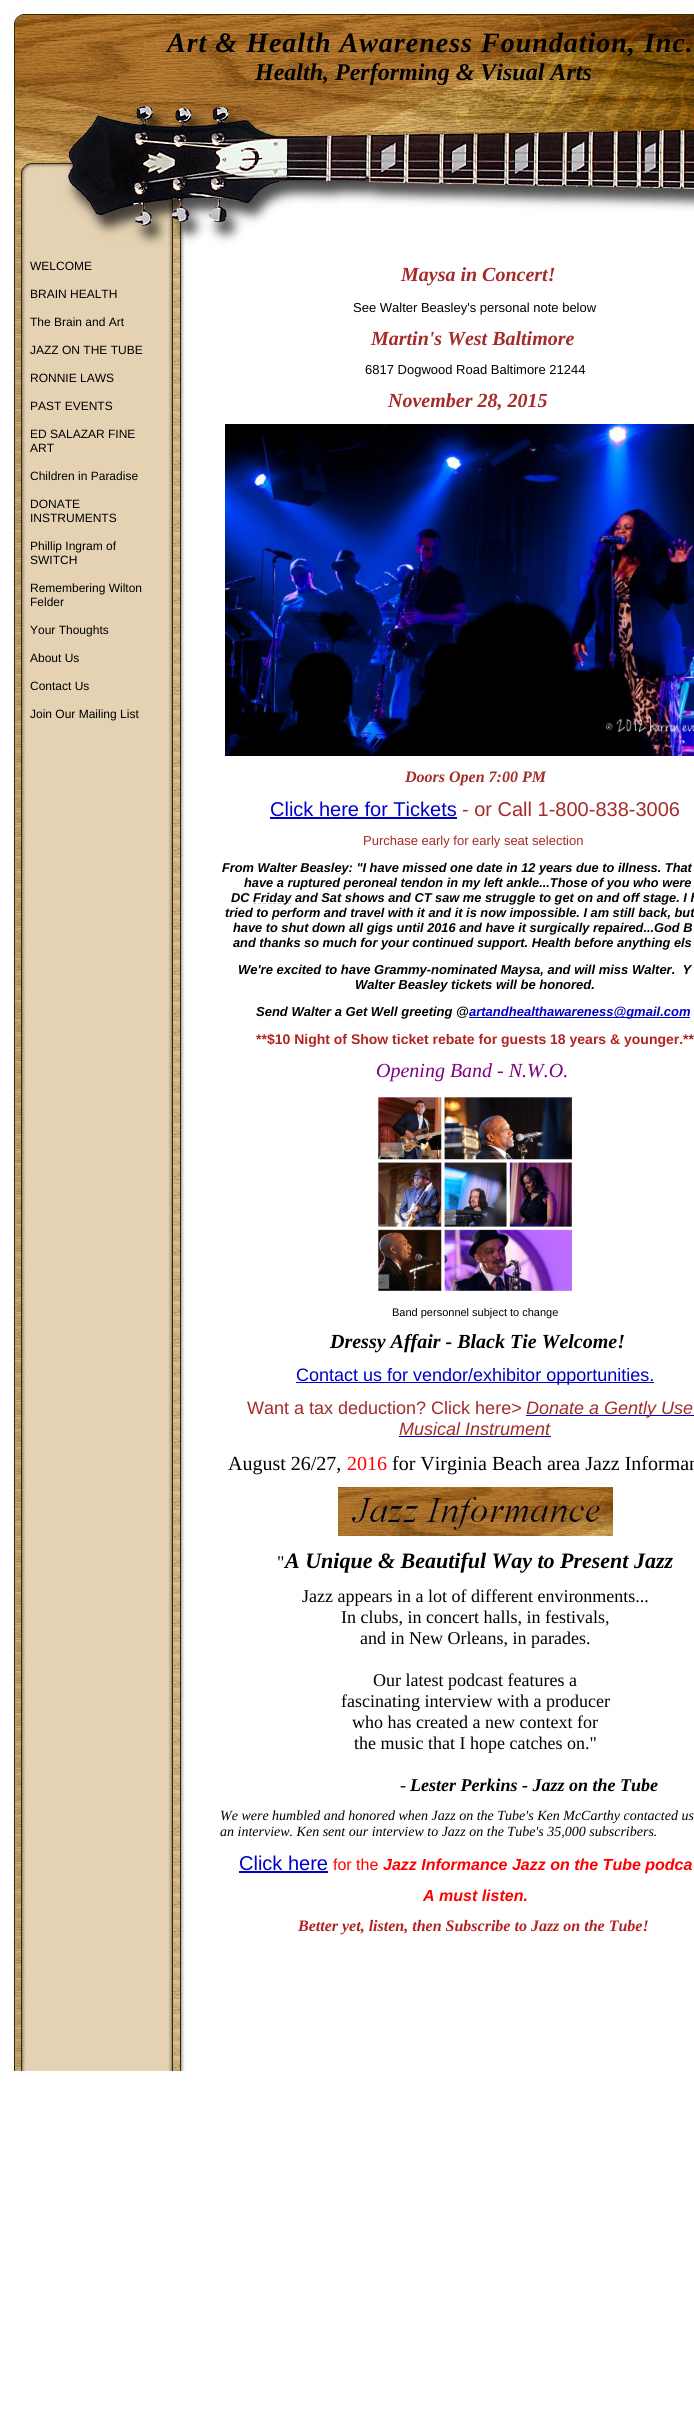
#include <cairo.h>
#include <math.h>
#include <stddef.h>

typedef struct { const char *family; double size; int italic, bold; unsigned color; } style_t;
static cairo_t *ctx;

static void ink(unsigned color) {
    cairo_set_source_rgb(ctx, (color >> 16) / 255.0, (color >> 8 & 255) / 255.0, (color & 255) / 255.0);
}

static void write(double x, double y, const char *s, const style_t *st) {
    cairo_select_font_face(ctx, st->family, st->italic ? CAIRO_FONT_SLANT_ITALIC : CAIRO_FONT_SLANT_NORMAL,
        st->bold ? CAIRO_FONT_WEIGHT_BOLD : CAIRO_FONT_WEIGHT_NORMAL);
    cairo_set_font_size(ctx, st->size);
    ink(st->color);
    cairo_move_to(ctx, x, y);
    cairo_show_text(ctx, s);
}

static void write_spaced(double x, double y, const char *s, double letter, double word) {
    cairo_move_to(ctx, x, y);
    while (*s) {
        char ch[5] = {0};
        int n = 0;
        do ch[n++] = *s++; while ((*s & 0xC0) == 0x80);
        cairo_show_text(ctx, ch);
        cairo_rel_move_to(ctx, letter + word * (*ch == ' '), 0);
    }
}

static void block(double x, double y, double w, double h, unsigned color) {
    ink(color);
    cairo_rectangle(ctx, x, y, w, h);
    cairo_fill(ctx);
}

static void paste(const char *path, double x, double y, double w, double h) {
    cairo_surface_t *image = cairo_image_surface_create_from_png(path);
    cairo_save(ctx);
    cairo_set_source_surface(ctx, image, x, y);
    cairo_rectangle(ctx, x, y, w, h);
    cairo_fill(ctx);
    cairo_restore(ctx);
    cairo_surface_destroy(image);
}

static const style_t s1 = {"Liberation Serif", 24, 1, 1, 0x000000};
static const style_t s2 = {"Liberation Sans", 12, 0, 0, 0x000000};
static const style_t s3 = {"Liberation Serif", 20, 1, 1, 0xa52a2a};
static const style_t s4 = {"Liberation Sans", 13, 0, 0, 0x000000};
static const style_t s5 = {"Liberation Serif", 16, 1, 1, 0xa52a2a};
static const style_t s6 = {"Liberation Sans", 20, 0, 0, 0x0000cc};
static const style_t s7 = {"Liberation Sans", 20, 0, 0, 0xa52a2a};
static const style_t s8 = {"Liberation Sans", 13, 0, 0, 0xa52a2a};
static const style_t s9 = {"Liberation Sans", 12.8, 1, 1, 0x000000};
static const style_t s10 = {"Liberation Sans", 13, 1, 1, 0x000000};
static const style_t s11 = {"Liberation Sans", 13, 1, 1, 0x0000cc};
static const style_t s12 = {"Liberation Sans", 14, 0, 1, 0xb22222};
static const style_t s13 = {"Liberation Serif", 20, 1, 0, 0x800080};
static const style_t s14 = {"Liberation Sans", 11, 0, 0, 0x000000};
static const style_t s15 = {"Liberation Serif", 20, 1, 1, 0x000000};
static const style_t s16 = {"Liberation Sans", 18, 0, 0, 0x0000cc};
static const style_t s17 = {"Liberation Sans", 18, 0, 0, 0xa52a2a};
static const style_t s18 = {"Liberation Sans", 18, 1, 0, 0xa52a2a};
static const style_t s19 = {"Liberation Serif", 20, 0, 0, 0x000000};
static const style_t s20 = {"Liberation Serif", 20, 0, 0, 0xff0000};
static const style_t s21 = {"Liberation Serif", 18, 0, 0, 0x000000};
static const style_t s22 = {"Liberation Serif", 22, 1, 1, 0x000000};
static const style_t s23 = {"Liberation Serif", 18, 1, 1, 0x000000};
static const style_t s24 = {"Liberation Serif", 14, 1, 0, 0x000000};
static const style_t s25 = {"Liberation Sans", 16, 0, 0, 0xff0000};
static const style_t s26 = {"Liberation Sans", 16, 1, 1, 0xff0000};
static const style_t s27 = {"Liberation Serif", 16, 1, 1, 0xb22222};

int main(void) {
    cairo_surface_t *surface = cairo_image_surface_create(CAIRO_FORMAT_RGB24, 694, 2430);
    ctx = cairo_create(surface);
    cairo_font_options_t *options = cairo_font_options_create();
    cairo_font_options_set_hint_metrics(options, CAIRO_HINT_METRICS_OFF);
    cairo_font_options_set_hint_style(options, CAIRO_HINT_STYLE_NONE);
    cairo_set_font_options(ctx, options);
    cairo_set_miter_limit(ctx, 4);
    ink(0xffffff);
    cairo_paint(ctx);
    paste("pic1.png", 10, 10, 684, 237);
    cairo_select_font_face(ctx, "Liberation Serif", CAIRO_FONT_SLANT_ITALIC, CAIRO_FONT_WEIGHT_BOLD);
    cairo_set_font_size(ctx, 28);
    ink(0x000000);
    write_spaced(167, 52, "Art & Health Awareness Foundation, Inc.", 1, 0);
    write(255, 80, "Health, Performing & Visual Arts", &s1);
    paste("pic2.png", 10, 247, 170, 1824);
    write(30, 270, "WELCOME", &s2);
    write(30, 298, "BRAIN HEALTH", &s2);
    write(30, 326, "The Brain and Art", &s2);
    write(30, 354, "JAZZ ON THE TUBE", &s2);
    write(30, 382, "RONNIE LAWS", &s2);
    write(30, 410, "PAST EVENTS", &s2);
    write(30, 438, "ED SALAZAR FINE", &s2);
    write(30, 452, "ART", &s2);
    write(30, 480, "Children in Paradise", &s2);
    write(30, 508, "DONATE", &s2);
    write(30, 522, "INSTRUMENTS", &s2);
    write(30, 550, "Phillip Ingram of", &s2);
    write(30, 564, "SWITCH", &s2);
    write(30, 592, "Remembering Wilton", &s2);
    write(30, 606, "Felder", &s2);
    write(30, 634, "Your Thoughts", &s2);
    write(30, 662, "About Us", &s2);
    write(30, 690, "Contact Us", &s2);
    write(30, 718, "Join Our Mailing List", &s2);
    paste("pic3.png", 180, 247, 8, 1824);
    write(401, 281, "Maysa in Concert!", &s3);
    write(353, 312, "See Walter Beasley's personal note below", &s4);
    write(371, 345, "Martin's West Baltimore", &s3);
    write(365, 374, "6817 Dogwood Road Baltimore 21244", &s4);
    write(388, 407, "November 28, 2015", &s3);
    paste("pic4.png", 225, 424, 469, 332);
    write(405, 782, "Doors Open 7:00 PM", &s5);
    write(270, 816, "Click here for Tickets", &s6);
    block(270, 817, 187, 2, 0x0000cc);
    write(462, 816, "- or Call 1-800-838-3006", &s7);
    write(363, 845, "Purchase early for early seat selection", &s8);
    write(222, 872, "From Walter Beasley: \"I have missed one date in 12 years due to illness. That", &s9);
    write(244, 887, "have a ruptured peroneal tendon in my left ankle...Those of you who were", &s9);
    write(231, 902, "DC", &s9);
    cairo_new_path(ctx);
    cairo_move_to(ctx, 253, 903.5);
    cairo_line_to(ctx, 291, 903.5);
    ink(0xcccccc);
    cairo_set_line_width(ctx, 1);
    cairo_set_dash(ctx, (double[]){3, 2}, 2, 0);
    cairo_stroke(ctx);
    write(253, 902, "Friday", &s9);
    write(295, 902, "and Sat shows and CT saw me struggle to get on and off stage. I h", &s9);
    write(225, 917, "tried to perform and travel with it and it is now impossible. I am still back, but", &s9);
    write(233, 932, "have to shut down all gigs until 2016 and have it surgically repaired...God B", &s9);
    write(233, 947, "and thanks so much for your continued support. Health before anything els", &s9);
    write(238, 974, "We're excited to have Grammy-nominated Maysa, and will miss Walter.  Y", &s10);
    write(355, 989, "Walter Beasley tickets will be honored.", &s10);
    write(256, 1016, "Send Walter a Get Well greeting @", &s10);
    block(469, 1017, 221, 1, 0x0000cc);
    write(469, 1016, "artandhealthawareness@gmail.com", &s11);
    write(256, 1044, "**$10 Night of Show ticket rebate for guests 18 years & younger.**", &s12);
    write(376, 1077, "Opening Band - N.W.O.", &s13);
    paste("pic5.png", 378, 1097, 194, 194);
    write(392, 1316, "Band personnel subject to change", &s14);
    write(330, 1348, "Dressy Affair - Black Tie Welcome!", &s15);
    block(296, 1382, 358, 1, 0x0000cc);
    write(296, 1381, "Contact us for vendor/exhibitor opportunities.", &s16);
    write(247, 1414, "Want a tax deduction? Click here>", &s17);
    block(526, 1415, 168, 1, 0x0000cc);
    write(526, 1414, "Donate a Gently Use", &s18);
    write(399, 1435, "Musical Instrument", &s18);
    block(399, 1436, 152, 1, 0x0000cc);
    write(228, 1470, "August 26/27,", &s19);
    write(347, 1470, "2016", &s20);
    write(392, 1470, "for Virginia Beach area Jazz Informan", &s19);
    paste("pic6.png", 338, 1487, 275, 49);
    write(277, 1568, "\"", &s21);
    write(285, 1568, "A Unique & Beautiful Way to Present Jazz", &s22);
    write(302, 1602, "Jazz appears in a lot of different environments...", &s21);
    write(341, 1623, "In clubs, in concert halls, in festivals,", &s21);
    write(360, 1644, "and in New Orleans, in parades.", &s21);
    write(373, 1686, "Our latest podcast features a", &s21);
    write(341, 1707, "fascinating interview with a producer", &s21);
    write(352, 1728, "who has created a new context for", &s21);
    write(354, 1749, "the music that I hope catches on.\"", &s21);
    write(400, 1791, "-", &s21);
    write(410, 1791, "Lester Perkins - Jazz on the Tube", &s23);
    write(220, 1820, "We were humbled and honored when Jazz on the Tube's Ken McCarthy contacted us", &s24);
    write(220, 1836, "an interview. Ken sent our interview to Jazz on the Tube's 35,000 subscribers.", &s24);
    write(239, 1870, "Click here", &s6);
    block(239, 1871, 89, 2, 0x0000cc);
    write(333, 1870, "for the", &s25);
    write(383, 1870, "Jazz Informance Jazz on the Tube podca", &s26);
    write(423, 1901, "A must listen.", &s26);
    write(298, 1931, "Better yet, listen, then Subscribe to Jazz on the Tube!", &s27);
    cairo_surface_write_to_png(surface, "screenshot.png");
    cairo_font_options_destroy(options);
    cairo_destroy(ctx);
    cairo_surface_destroy(surface);
    return 0;
}
